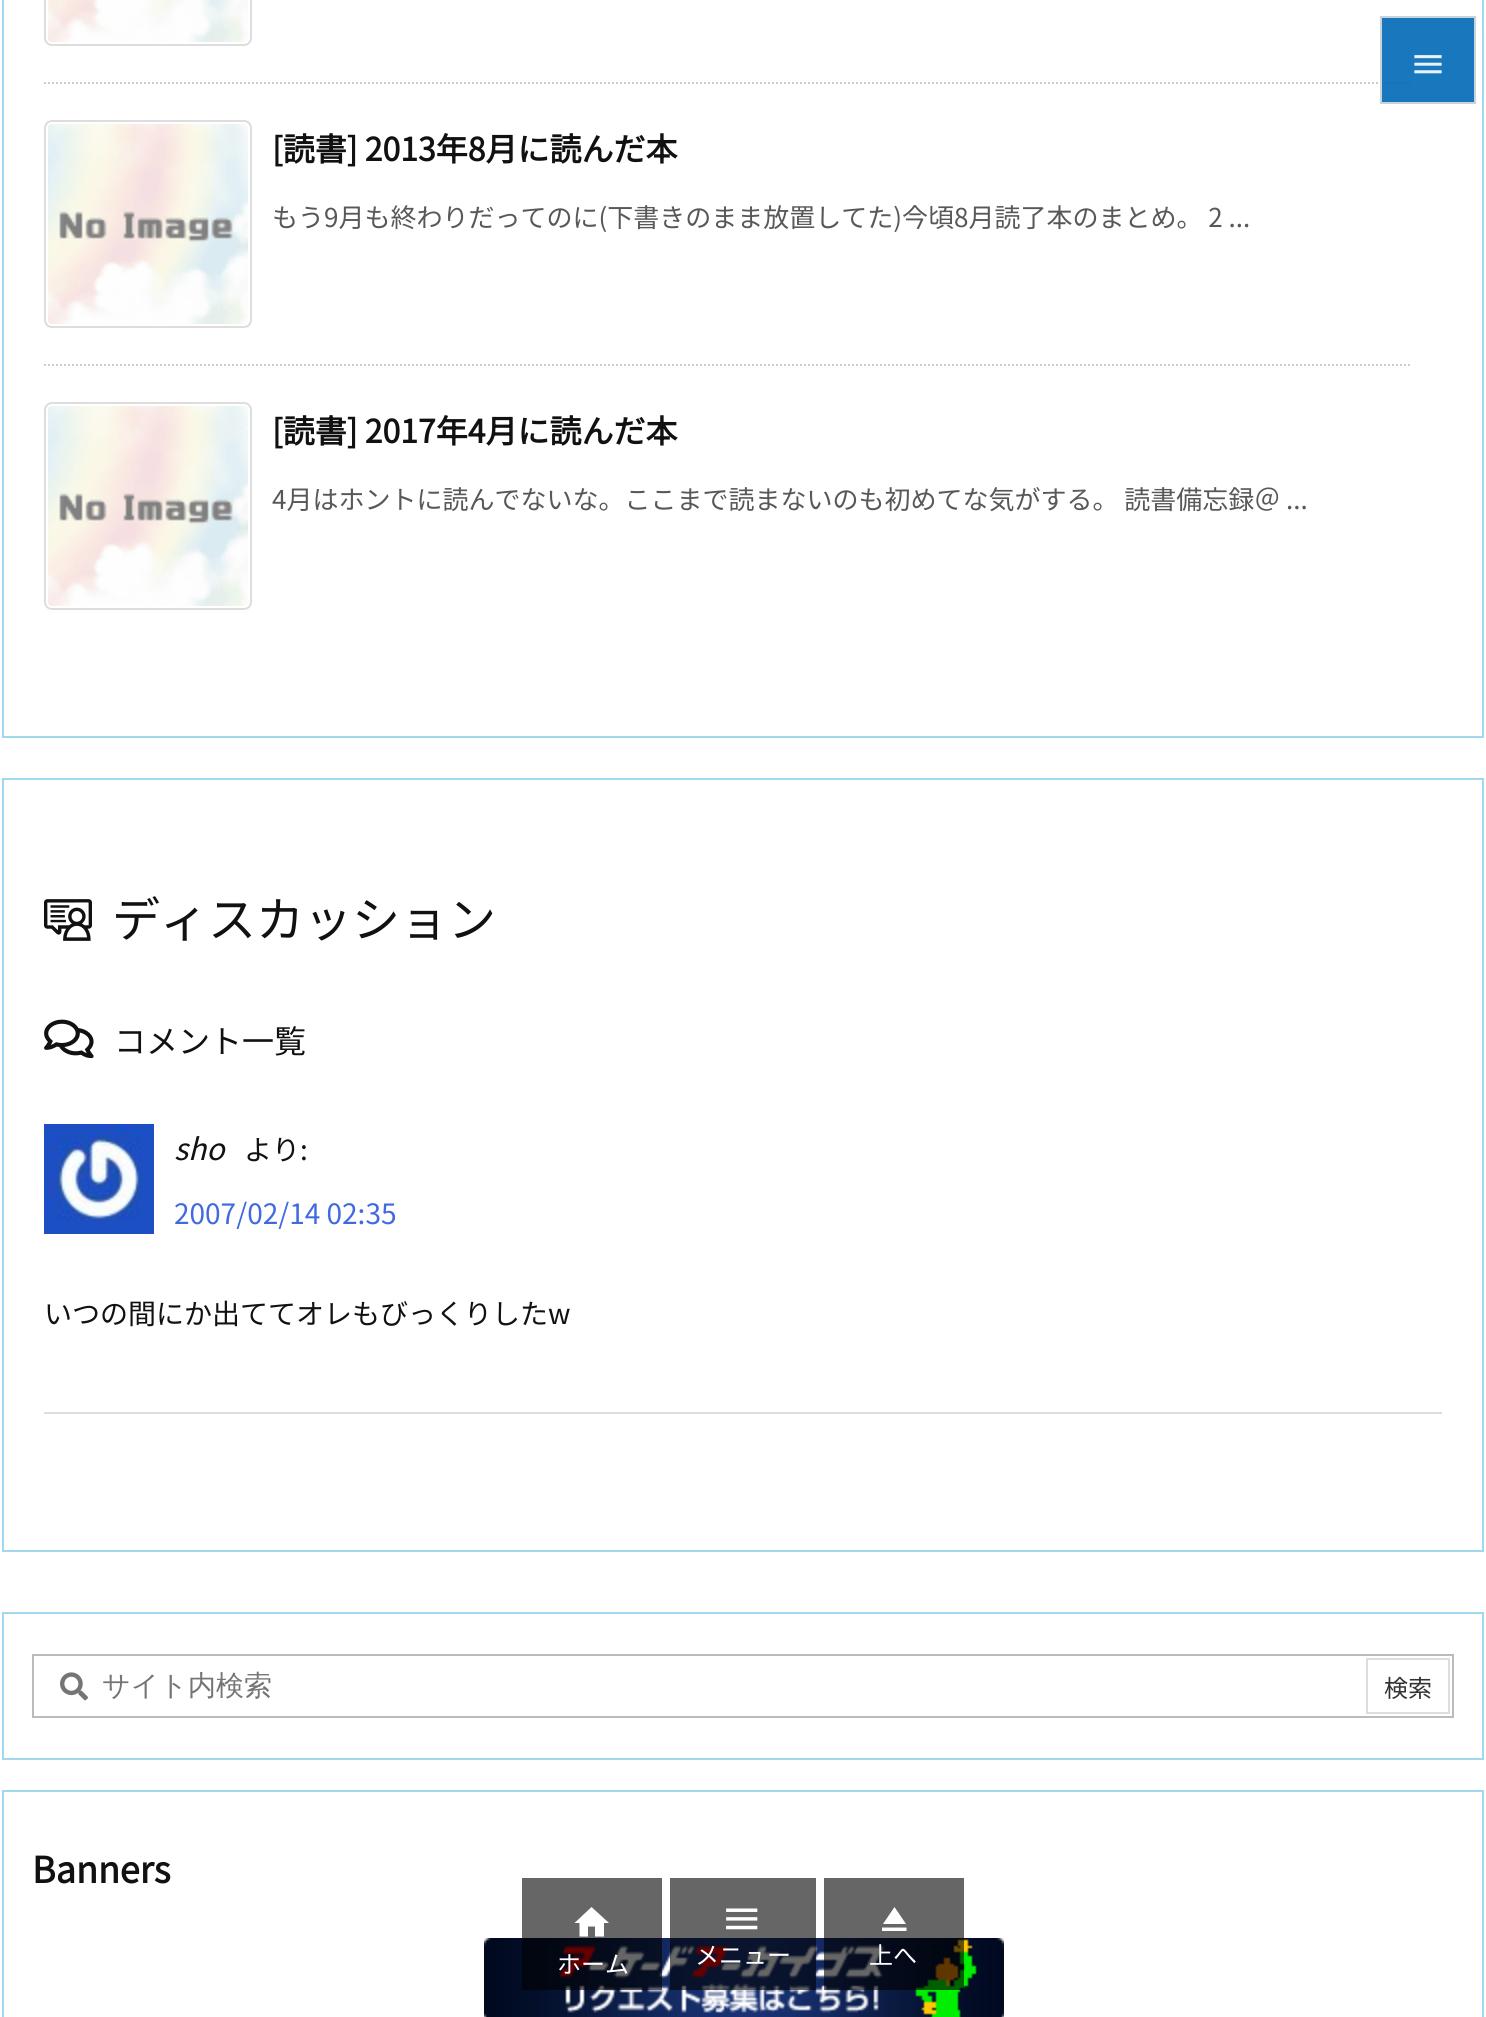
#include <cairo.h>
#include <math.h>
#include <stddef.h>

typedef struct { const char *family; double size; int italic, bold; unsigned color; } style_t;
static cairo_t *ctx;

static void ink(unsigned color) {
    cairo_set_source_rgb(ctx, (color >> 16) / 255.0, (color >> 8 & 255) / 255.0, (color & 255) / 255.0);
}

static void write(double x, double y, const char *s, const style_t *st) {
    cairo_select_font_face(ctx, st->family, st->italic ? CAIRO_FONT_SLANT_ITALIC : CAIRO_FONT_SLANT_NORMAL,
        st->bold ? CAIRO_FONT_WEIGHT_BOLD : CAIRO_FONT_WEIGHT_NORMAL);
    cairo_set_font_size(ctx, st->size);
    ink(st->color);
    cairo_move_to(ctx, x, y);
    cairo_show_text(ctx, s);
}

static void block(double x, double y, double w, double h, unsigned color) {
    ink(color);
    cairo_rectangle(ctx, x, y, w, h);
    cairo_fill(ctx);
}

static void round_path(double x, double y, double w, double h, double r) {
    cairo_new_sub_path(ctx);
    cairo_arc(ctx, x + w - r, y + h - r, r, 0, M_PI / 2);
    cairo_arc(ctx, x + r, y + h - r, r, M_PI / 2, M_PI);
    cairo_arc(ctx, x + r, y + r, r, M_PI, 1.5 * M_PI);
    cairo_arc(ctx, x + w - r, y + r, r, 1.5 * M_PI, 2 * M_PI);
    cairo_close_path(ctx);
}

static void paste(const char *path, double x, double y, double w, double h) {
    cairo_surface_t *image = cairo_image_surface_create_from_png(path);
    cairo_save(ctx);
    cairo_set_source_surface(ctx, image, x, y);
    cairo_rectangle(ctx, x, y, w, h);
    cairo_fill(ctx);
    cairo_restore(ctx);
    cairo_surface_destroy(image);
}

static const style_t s1 = {"Noto Sans JP", 32, 0, 1, 0x111111};
static const style_t s2 = {"Noto Sans JP Thin", 26, 0, 0, 0x585858};
static const style_t s3 = {"Noto Sans JP Thin", 48, 0, 0, 0x111111};
static const style_t s4 = {"Noto Sans JP Thin", 32, 0, 0, 0x111111};
static const style_t s5 = {"Noto Sans JP Thin", 30, 1, 0, 0x111111};
static const style_t s6 = {"Noto Sans JP Thin", 28, 0, 0, 0x111111};
static const style_t s7 = {"Noto Sans JP Thin", 28, 0, 0, 0x4169e1};
static const style_t s8 = {"WenQuanYi Zen Hei Medium", 28, 0, 0, 0x757575};
static const style_t s9 = {"Noto Sans JP Thin", 24, 0, 0, 0x333333};
static const style_t s10 = {"Noto Sans JP", 36, 0, 1, 0x111111};
static const style_t s11 = {"Noto Sans JP Thin", 24, 0, 0, 0xffffff};

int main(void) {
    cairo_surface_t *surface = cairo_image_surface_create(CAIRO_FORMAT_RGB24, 1486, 2017);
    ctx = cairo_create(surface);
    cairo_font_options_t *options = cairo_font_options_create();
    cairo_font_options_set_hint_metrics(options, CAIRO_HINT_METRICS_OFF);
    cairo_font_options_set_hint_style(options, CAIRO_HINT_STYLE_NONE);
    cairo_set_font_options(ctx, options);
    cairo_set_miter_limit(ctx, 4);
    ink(0xffffff);
    cairo_paint(ctx);
    cairo_rectangle(ctx, 3, -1, 1480, 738);
    ink(0xa0d8ef);
    cairo_stroke(ctx);
    cairo_new_path(ctx);
    cairo_move_to(ctx, 44, 83);
    cairo_line_to(ctx, 1412, 83);
    ink(0xcccccc);
    cairo_set_dash(ctx, (double[]){2, 2}, 2, 0);
    cairo_stroke(ctx);
    cairo_set_source_rgba(ctx, 0, 0.408, 0.718, 0.9);
    cairo_rectangle(ctx, 1380, 16, 96, 88);
    cairo_fill(ctx);
    cairo_rectangle(ctx, 1381, 17, 94, 86);
    cairo_set_source_rgba(ctx, 0.867, 0.867, 0.867, 0.9);
    cairo_set_dash(ctx, NULL, 0, 0);
    cairo_stroke(ctx);
    paste("pic1.png", 1414, 55, 28, 19);
    round_path(45, -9, 206, 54, 7);
    ink(0xdddddd);
    cairo_stroke(ctx);
    paste("pic2.png", 48, 0, 200, 42);
    round_path(45, 121, 206, 206, 7);
    cairo_stroke(ctx);
    paste("pic3.png", 48, 124, 200, 200);
    write(272, 161, "[読書] 2013年8月に読んだ本", &s1);
    write(272, 227, "もう9月も終わりだってのに(下書きのまま放置してた)今頃8月読了本のまとめ。 2 ...", &s2);
    cairo_new_path(ctx);
    cairo_move_to(ctx, 44, 365);
    cairo_line_to(ctx, 1412, 365);
    ink(0xcccccc);
    cairo_set_dash(ctx, (double[]){2, 2}, 2, 0);
    cairo_stroke(ctx);
    round_path(45, 403, 206, 206, 7);
    ink(0xdddddd);
    cairo_set_dash(ctx, NULL, 0, 0);
    cairo_stroke(ctx);
    paste("pic3.png", 48, 406, 200, 200);
    write(272, 443, "[読書] 2017年4月に読んだ本", &s1);
    write(272, 509, "4月はホントに読んでないな。ここまで読まないのも初めてな気がする。 読書備忘録＠ ...", &s2);
    cairo_rectangle(ctx, 3, 779, 1480, 772);
    ink(0xa0d8ef);
    cairo_stroke(ctx);
    paste("pic4.png", 44, 899, 48, 42);
    write(112, 937, "ディスカッション", &s3);
    paste("pic5.png", 44, 1019, 50, 40);
    write(114, 1053, "コメント一覧", &s4);
    block(44, 1412, 1398, 2, 0xdddddd);
    paste("pic6.png", 44, 1124, 110, 110);
    write(174, 1160, "sho", &s5);
    write(244, 1160, "より:", &s6);
    write(174, 1224, "2007/02/14 02:35", &s7);
    write(44, 1324, "いつの間にか出ててオレもびっくりしたw", &s6);
    cairo_rectangle(ctx, 3, 1613, 1480, 146);
    ink(0xa0d8ef);
    cairo_stroke(ctx);
    cairo_rectangle(ctx, 33, 1655, 1420, 62);
    ink(0xbbbbbb);
    cairo_stroke(ctx);
    paste("pic7.png", 60, 1672, 28, 29);
    write(102, 1695, "サイト内検索", &s8);
    cairo_rectangle(ctx, 1367, 1659, 82, 54);
    ink(0xdddddd);
    cairo_stroke(ctx);
    write(1384, 1697, "検索", &s9);
    cairo_rectangle(ctx, 3, 1791, 1480, 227);
    ink(0xa0d8ef);
    cairo_stroke(ctx);
    write(32, 1883, "Banners", &s10);
    paste("pic8.png", 484, 1938, 520, 79);
    cairo_set_source_rgba(ctx, 0, 0, 0, 0.6);
    cairo_rectangle(ctx, 522, 1878, 140, 112);
    cairo_fill(ctx);
    ink(0xffffff);
    cairo_new_path(ctx);
    cairo_move_to(ctx, 588, 1936.5);
    cairo_line_to(ctx, 579.5, 1936.5);
    cairo_line_to(ctx, 579.5, 1923);
    cairo_line_to(ctx, 574.5, 1923);
    cairo_line_to(ctx, 591.5, 1907);
    cairo_line_to(ctx, 609, 1923);
    cairo_line_to(ctx, 604, 1923);
    cairo_line_to(ctx, 604, 1936.5);
    cairo_line_to(ctx, 595, 1936.5);
    cairo_line_to(ctx, 595, 1926.5);
    cairo_line_to(ctx, 588, 1926.5);
    cairo_close_path(ctx);
    cairo_fill(ctx);
    write(557, 1973, "ホーム", &s11);
    cairo_set_source_rgba(ctx, 0, 0, 0, 0.6);
    cairo_rectangle(ctx, 670, 1878, 146, 112);
    cairo_fill(ctx);
    paste("pic9.png", 726, 1908, 32, 22);
    write(695, 1964, "メニュー", &s11);
    cairo_set_source_rgba(ctx, 0, 0, 0, 0.6);
    cairo_rectangle(ctx, 824, 1878, 140, 112);
    cairo_fill(ctx);
    ink(0xffffff);
    cairo_new_path(ctx);
    cairo_move_to(ctx, 894.5, 1907);
    cairo_line_to(ctx, 906, 1924);
    cairo_line_to(ctx, 883, 1924);
    cairo_close_path(ctx);
    cairo_move_to(ctx, 882, 1927.5);
    cairo_line_to(ctx, 906.5, 1927.5);
    cairo_line_to(ctx, 906.5, 1931);
    cairo_line_to(ctx, 882, 1931);
    cairo_close_path(ctx);
    cairo_fill(ctx);
    write(869, 1964, "上へ", &s11);
    cairo_surface_write_to_png(surface, "screenshot.png");
    cairo_font_options_destroy(options);
    cairo_destroy(ctx);
    cairo_surface_destroy(surface);
    return 0;
}
